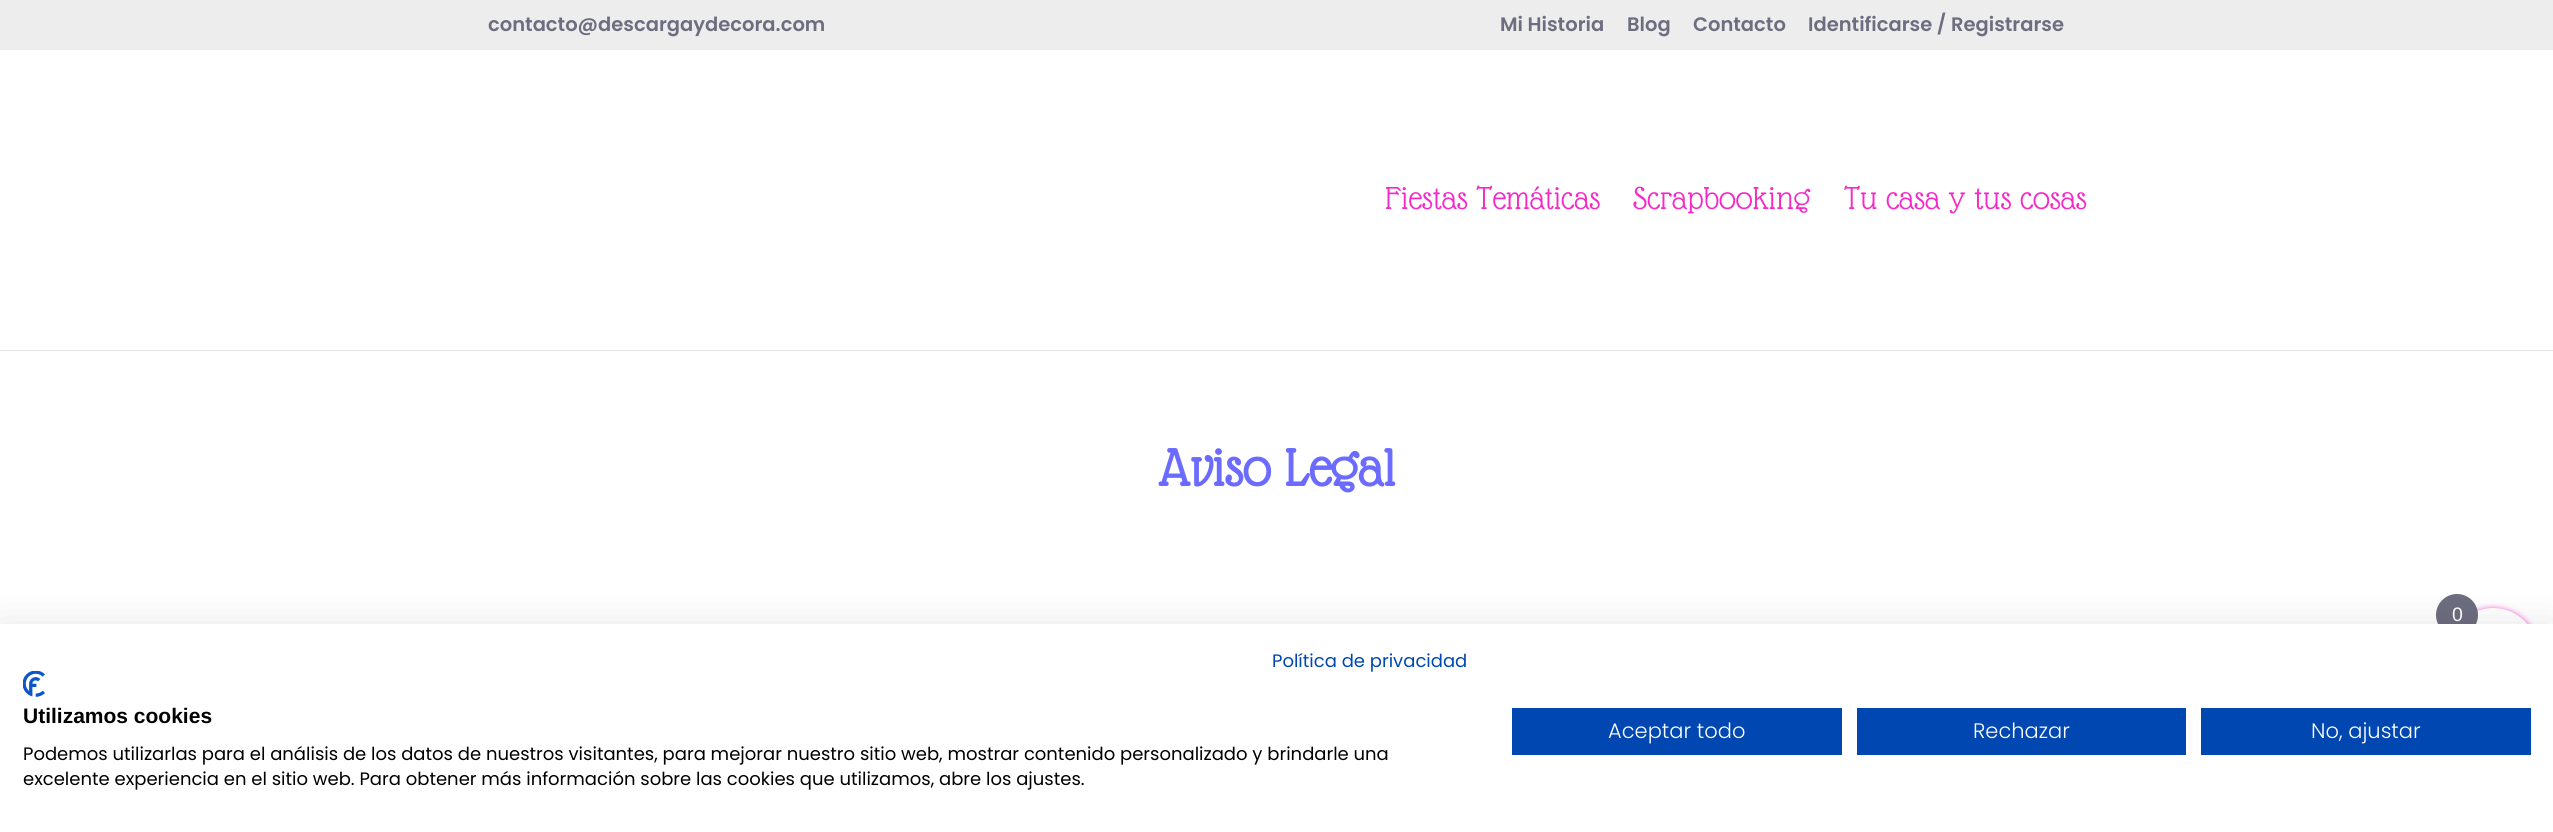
#include <cairo.h>
#include <math.h>
#include <stddef.h>

typedef struct { const char *family; double size; int italic, bold; unsigned color; } style_t;
static cairo_t *ctx;

static void ink(unsigned color) {
    cairo_set_source_rgb(ctx, (color >> 16) / 255.0, (color >> 8 & 255) / 255.0, (color & 255) / 255.0);
}

static void write(double x, double y, const char *s, const style_t *st) {
    cairo_select_font_face(ctx, st->family, st->italic ? CAIRO_FONT_SLANT_ITALIC : CAIRO_FONT_SLANT_NORMAL,
        st->bold ? CAIRO_FONT_WEIGHT_BOLD : CAIRO_FONT_WEIGHT_NORMAL);
    cairo_set_font_size(ctx, st->size);
    ink(st->color);
    cairo_move_to(ctx, x, y);
    cairo_show_text(ctx, s);
}

static void block(double x, double y, double w, double h, unsigned color) {
    ink(color);
    cairo_rectangle(ctx, x, y, w, h);
    cairo_fill(ctx);
}

static void round_path(double x, double y, double w, double h, double r) {
    cairo_new_sub_path(ctx);
    cairo_arc(ctx, x + w - r, y + h - r, r, 0, M_PI / 2);
    cairo_arc(ctx, x + r, y + h - r, r, M_PI / 2, M_PI);
    cairo_arc(ctx, x + r, y + r, r, M_PI, 1.5 * M_PI);
    cairo_arc(ctx, x + w - r, y + r, r, 1.5 * M_PI, 2 * M_PI);
    cairo_close_path(ctx);
}

static void blur_box(double x, double y, double w, double h, double r, double blur, double alpha) {
    cairo_push_group_with_content(ctx, CAIRO_CONTENT_ALPHA);
    cairo_set_operator(ctx, CAIRO_OPERATOR_SOURCE);
    for (int i = 15; i >= -15 && fmin(w, h) + blur * i / 3 > 0; i -= 2) {
        double e = blur * i / 6;
        cairo_set_source_rgba(ctx, 0, 0, 0, alpha * erfc((i - 1) / 8.5) / 2);
        round_path(x - e, y - e, w + 2 * e, h + 2 * e, fmax(0, fmin(r + e + blur * .6, fmin(w, h) / 2 + e)));
        cairo_fill(ctx);
    }
    cairo_pattern_t *soft = cairo_pop_group(ctx);
    cairo_mask(ctx, soft);
    cairo_pattern_destroy(soft);
}

static void paste(const char *path, double x, double y, double w, double h) {
    cairo_surface_t *image = cairo_image_surface_create_from_png(path);
    cairo_save(ctx);
    cairo_set_source_surface(ctx, image, x, y);
    cairo_rectangle(ctx, x, y, w, h);
    cairo_fill(ctx);
    cairo_restore(ctx);
    cairo_surface_destroy(image);
}

static const style_t s1 = {"Poppins SemiBold", 19.5, 0, 0, 0x6d6d80};
static const style_t s2 = {"Glass Antiqua", 34.5, 0, 0, 0xf529c7};
static const style_t s3 = {"Glass Antiqua", 57, 0, 1, 0x6b6bff};
static const style_t s4 = {"Liberation Sans", 19.5, 0, 0, 0xffffff};
static const style_t s5 = {"Poppins", 18, 0, 0, 0x0047b2};
static const style_t s6 = {"Liberation Sans", 21, 0, 1, 0x000000};
static const style_t s7 = {"Poppins", 18, 0, 0, 0x000000};
static const style_t s8 = {"Poppins Light", 21, 0, 0, 0xffffff};

int main(void) {
    cairo_surface_t *surface = cairo_image_surface_create(CAIRO_FORMAT_RGB24, 2553, 832);
    ctx = cairo_create(surface);
    cairo_font_options_t *options = cairo_font_options_create();
    cairo_font_options_set_hint_metrics(options, CAIRO_HINT_METRICS_OFF);
    cairo_font_options_set_hint_style(options, CAIRO_HINT_STYLE_NONE);
    cairo_set_font_options(ctx, options);
    cairo_set_miter_limit(ctx, 4);
    ink(0xffffff);
    cairo_paint(ctx);
    block(0, 0, 2553, 50, 0xededed);
    write(488, 31, "contacto@descargaydecora.com", &s1);
    write(1500, 31, "Mi Historia", &s1);
    write(1627, 31, "Blog", &s1);
    write(1693, 31, "Contacto", &s1);
    write(1808, 31, "Identificarse / Registrarse", &s1);
    block(0, 350, 2553, 1, 0xe6e6e6);
    write(1385, 209, "Fiestas Temáticas", &s2);
    write(1633, 209, "Scrapbooking", &s2);
    write(1844, 209, "Tu casa y tus cosas", &s2);
    write(1158, 486, "Aviso Legal", &s3);
    ink(0xf529c7);
    blur_box(2448, 609, 90, 90, 45, 3, 1);
    ink(0xffffff);
    cairo_arc(ctx, 2493, 653, 45, 0, 2 * M_PI);
    cairo_fill(ctx);
    ink(0x6d6d80);
    cairo_arc(ctx, 2457, 615, 21, 0, 2 * M_PI);
    cairo_fill(ctx);
    write(2452, 621, "0", &s4);
    ink(0x000000);
    blur_box(0, 624, 2553, 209, 0, 18, 0.1);
    block(0, 624, 2553, 208, 0xffffff);
    write(1272, 667, "Política de privacidad", &s5);
    paste("pic1.png", 23, 671, 22, 26);
    write(23, 723, "Utilizamos cookies", &s6);
    write(23, 760, "Podemos utilizarlas para el análisis de los datos de nuestros visitantes, para mejorar nuestro sitio web, mostrar contenido personalizado y brindarle una", &s7);
    write(23, 785, "excelente experiencia en el sitio web. Para obtener más información sobre las cookies que utilizamos, abre los ajustes.", &s7);
    block(1512, 708, 330, 47, 0x0047b2);
    write(1608, 738, "Aceptar todo", &s8);
    block(1857, 708, 329, 47, 0x0047b2);
    write(1973, 738, "Rechazar", &s8);
    block(2201, 708, 330, 47, 0x0047b2);
    write(2311, 738, "No, ajustar", &s8);
    cairo_surface_write_to_png(surface, "screenshot.png");
    cairo_font_options_destroy(options);
    cairo_destroy(ctx);
    cairo_surface_destroy(surface);
    return 0;
}
